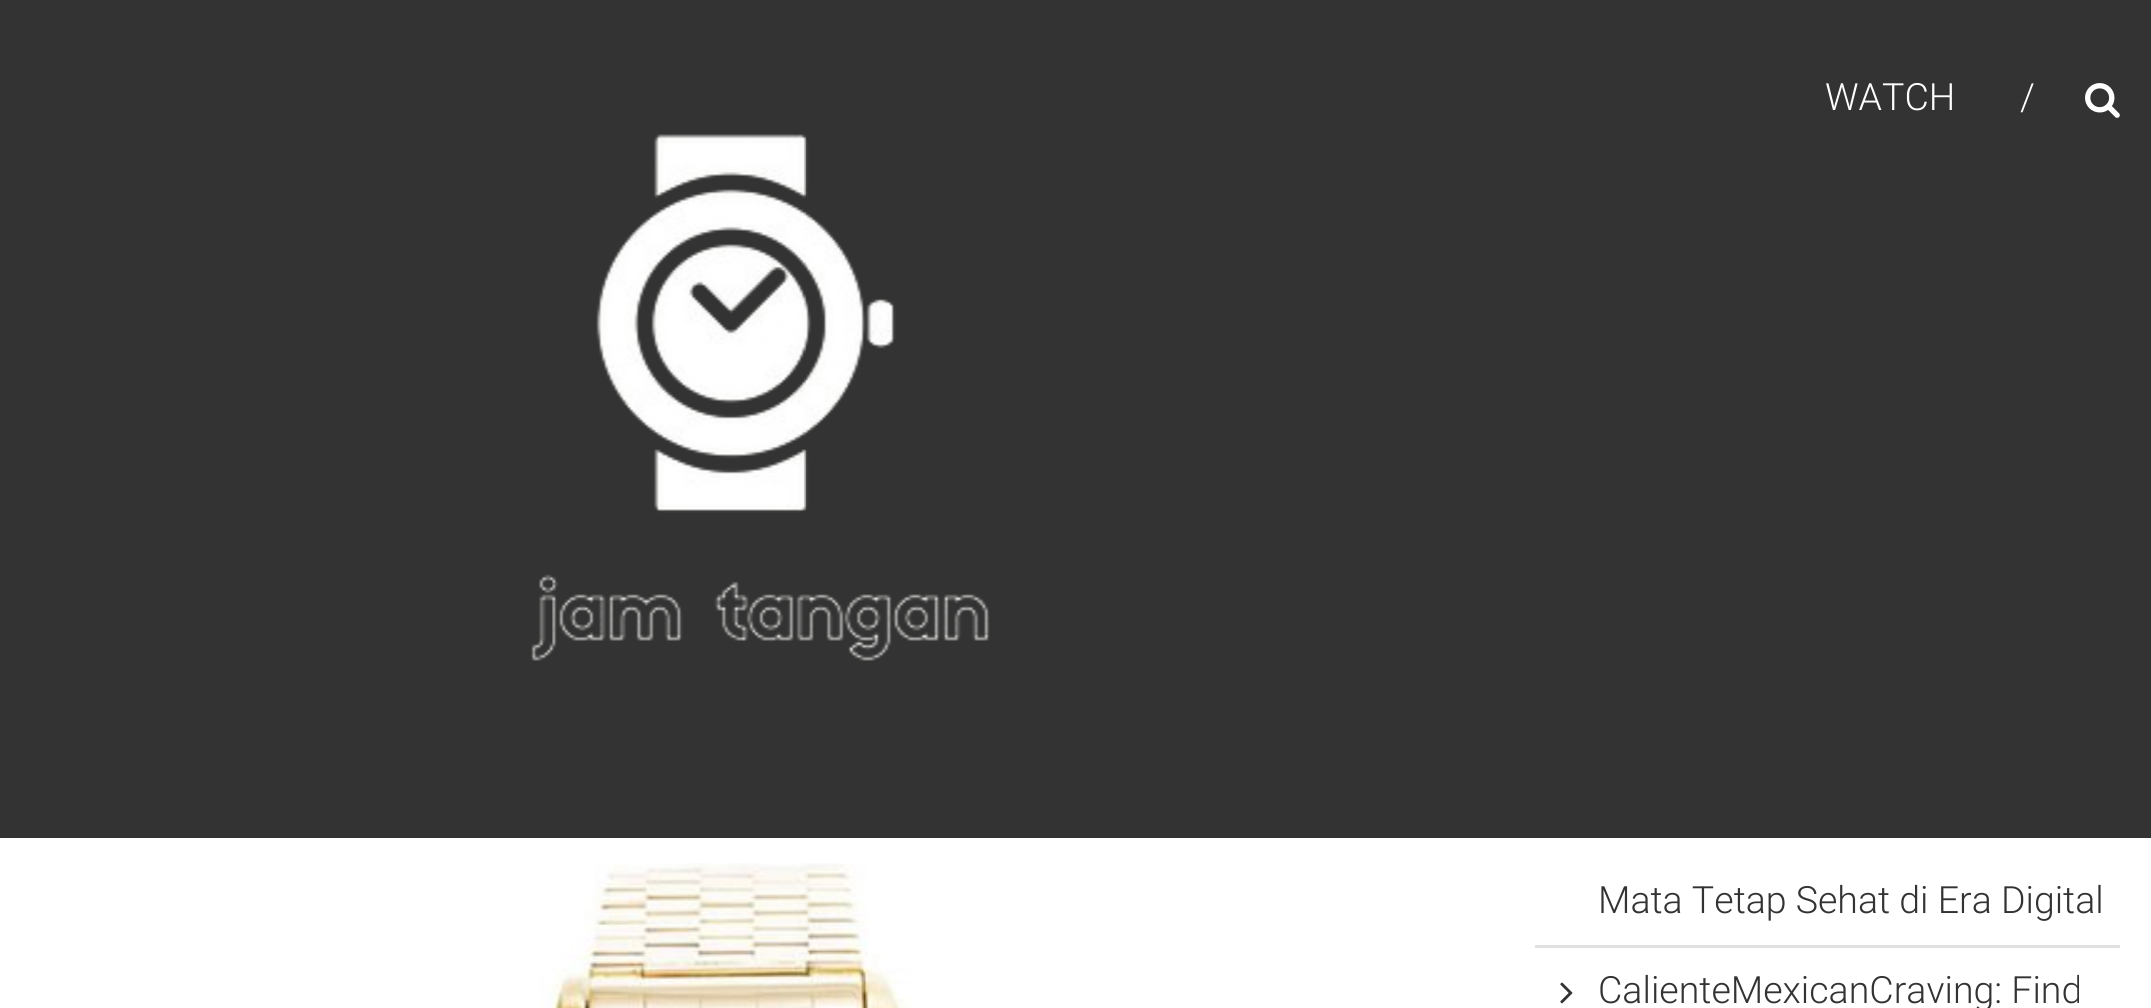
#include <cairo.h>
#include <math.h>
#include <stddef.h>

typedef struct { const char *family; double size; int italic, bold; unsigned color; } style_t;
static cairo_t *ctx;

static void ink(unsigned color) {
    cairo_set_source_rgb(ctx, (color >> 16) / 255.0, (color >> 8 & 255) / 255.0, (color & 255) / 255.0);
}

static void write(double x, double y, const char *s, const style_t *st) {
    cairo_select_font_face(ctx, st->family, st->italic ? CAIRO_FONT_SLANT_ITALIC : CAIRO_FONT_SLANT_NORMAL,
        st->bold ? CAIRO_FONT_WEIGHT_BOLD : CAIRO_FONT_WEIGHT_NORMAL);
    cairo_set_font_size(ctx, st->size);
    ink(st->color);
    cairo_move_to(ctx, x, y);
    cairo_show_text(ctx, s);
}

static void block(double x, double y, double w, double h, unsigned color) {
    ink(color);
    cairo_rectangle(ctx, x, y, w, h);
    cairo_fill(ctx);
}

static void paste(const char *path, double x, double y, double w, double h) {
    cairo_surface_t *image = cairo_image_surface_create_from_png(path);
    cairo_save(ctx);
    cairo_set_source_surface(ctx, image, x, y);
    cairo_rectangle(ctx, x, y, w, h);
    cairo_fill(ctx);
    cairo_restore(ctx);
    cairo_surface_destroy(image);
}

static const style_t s1 = {"Roboto Light", 37.5, 0, 0, 0xffffff};
static const style_t s2 = {"Roboto Light", 37.5, 0, 0, 0x333333};

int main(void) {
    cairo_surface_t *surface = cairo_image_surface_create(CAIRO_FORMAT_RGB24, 2151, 1008);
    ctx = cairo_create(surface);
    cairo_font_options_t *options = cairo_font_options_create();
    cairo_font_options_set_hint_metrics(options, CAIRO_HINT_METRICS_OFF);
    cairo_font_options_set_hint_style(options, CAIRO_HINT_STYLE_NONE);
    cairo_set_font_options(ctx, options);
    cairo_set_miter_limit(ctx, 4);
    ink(0xffffff);
    cairo_paint(ctx);
    block(0, 0, 2151, 838, 0x333333);
    write(1825, 110, "WATCH", &s1);
    write(2020, 110, "/", &s1);
    paste("pic1.png", 2085, 83, 35, 35);
    paste("pic2.png", 531, 134, 459, 527);
    paste("pic3.png", 539, 863, 373, 145);
    block(1535, 945, 585, 3, 0xe1e1e1);
    write(1598, 913, "Mata Tetap Sehat di Era Digital", &s2);
    paste("pic4.png", 1560, 982, 13, 22);
    write(1598, 1003, "CalienteMexicanCraving: Find", &s2);
    cairo_surface_write_to_png(surface, "screenshot.png");
    cairo_font_options_destroy(options);
    cairo_destroy(ctx);
    cairo_surface_destroy(surface);
    return 0;
}
